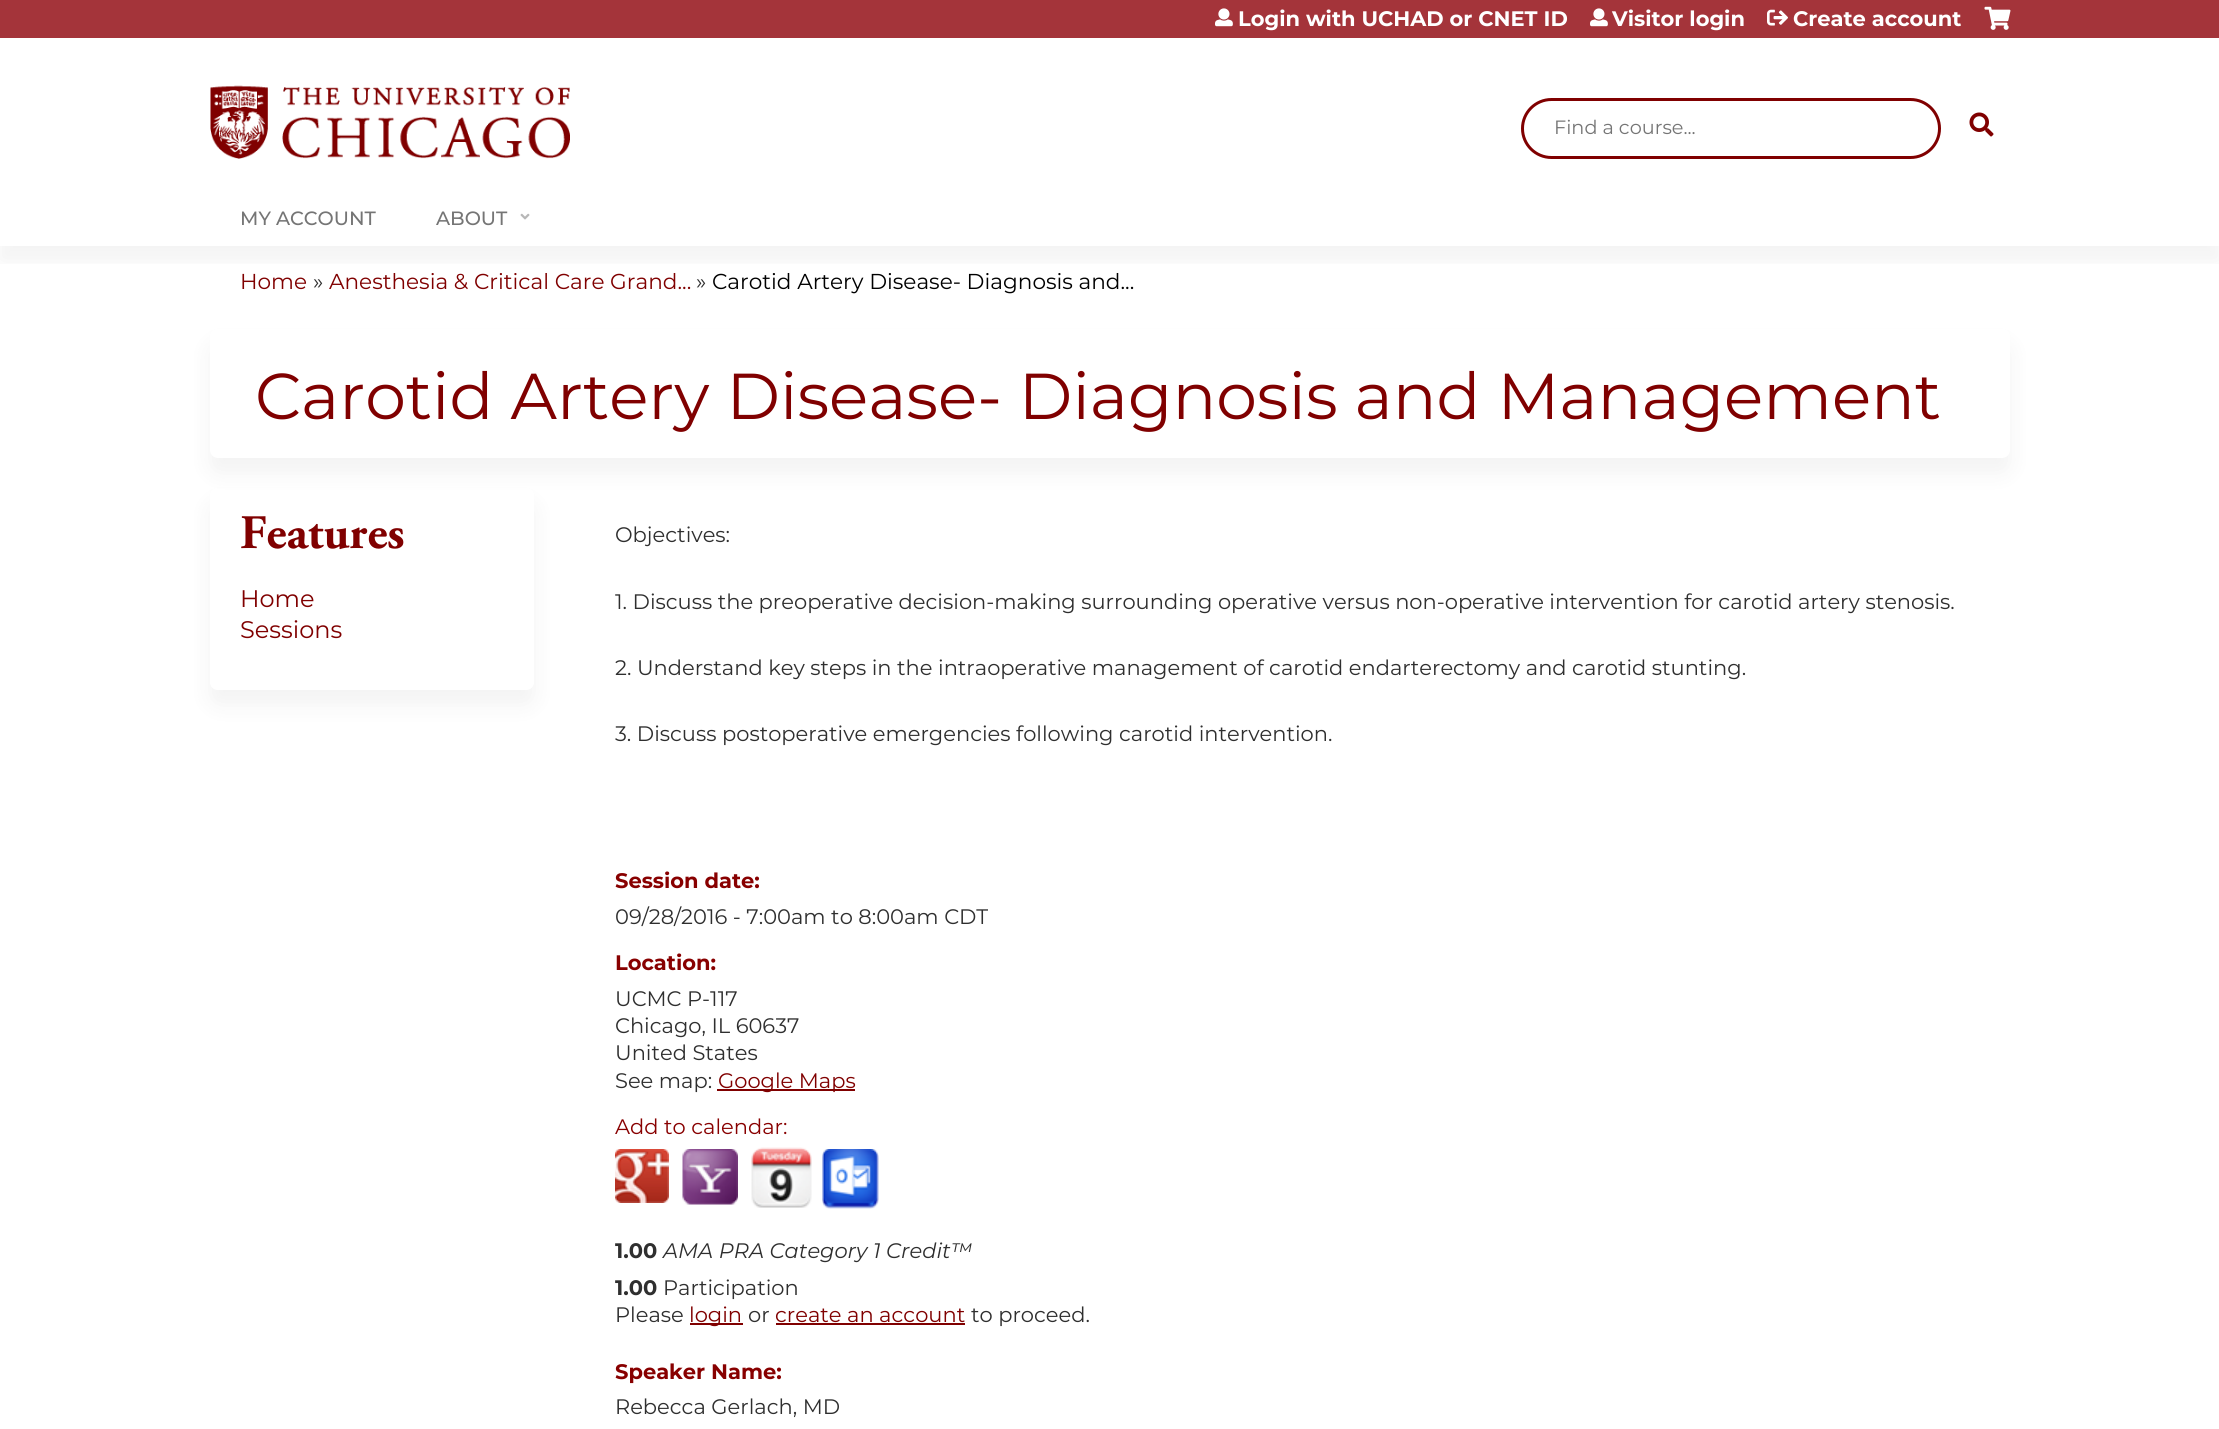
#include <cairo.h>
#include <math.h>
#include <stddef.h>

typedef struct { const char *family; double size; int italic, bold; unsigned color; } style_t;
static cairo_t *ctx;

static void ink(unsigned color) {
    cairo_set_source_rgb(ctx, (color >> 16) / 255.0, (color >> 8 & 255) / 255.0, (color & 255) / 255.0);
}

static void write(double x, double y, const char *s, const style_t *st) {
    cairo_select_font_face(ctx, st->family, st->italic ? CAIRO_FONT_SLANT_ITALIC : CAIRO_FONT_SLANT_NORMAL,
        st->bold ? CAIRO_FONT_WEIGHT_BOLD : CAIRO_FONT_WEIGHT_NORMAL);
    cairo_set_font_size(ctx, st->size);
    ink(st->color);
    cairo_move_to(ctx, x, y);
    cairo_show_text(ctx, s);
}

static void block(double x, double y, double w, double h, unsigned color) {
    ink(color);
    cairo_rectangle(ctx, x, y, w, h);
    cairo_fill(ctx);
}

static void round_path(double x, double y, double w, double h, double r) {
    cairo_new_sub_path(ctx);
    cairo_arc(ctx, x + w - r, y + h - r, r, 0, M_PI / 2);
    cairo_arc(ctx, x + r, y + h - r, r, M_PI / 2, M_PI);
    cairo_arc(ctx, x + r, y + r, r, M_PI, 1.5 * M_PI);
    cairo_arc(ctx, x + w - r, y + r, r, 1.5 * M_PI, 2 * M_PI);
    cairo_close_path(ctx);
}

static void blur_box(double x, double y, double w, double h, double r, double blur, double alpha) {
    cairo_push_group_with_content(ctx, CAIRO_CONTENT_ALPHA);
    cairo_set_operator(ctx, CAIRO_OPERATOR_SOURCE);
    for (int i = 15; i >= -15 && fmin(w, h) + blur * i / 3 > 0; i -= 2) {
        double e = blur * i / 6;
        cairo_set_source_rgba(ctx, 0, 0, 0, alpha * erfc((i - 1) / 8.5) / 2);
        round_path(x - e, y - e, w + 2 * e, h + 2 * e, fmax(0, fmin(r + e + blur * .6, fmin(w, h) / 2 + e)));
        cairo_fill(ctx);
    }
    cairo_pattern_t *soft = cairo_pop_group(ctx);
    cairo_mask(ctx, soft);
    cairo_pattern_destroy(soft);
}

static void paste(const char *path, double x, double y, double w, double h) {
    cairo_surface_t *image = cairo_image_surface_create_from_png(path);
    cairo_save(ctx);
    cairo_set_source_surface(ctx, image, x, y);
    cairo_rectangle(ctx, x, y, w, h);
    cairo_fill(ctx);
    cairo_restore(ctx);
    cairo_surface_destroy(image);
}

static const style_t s1 = {"Montserrat", 21, 0, 1, 0xffffff};
static const style_t s2 = {"Montserrat", 19.25, 0, 0, 0x757575};
static const style_t s3 = {"Montserrat Medium", 19.25, 0, 0, 0x757575};
static const style_t s4 = {"Montserrat", 21.6, 0, 0, 0x800000};
static const style_t s5 = {"Montserrat", 21.6, 0, 0, 0x2f2f2f};
static const style_t s6 = {"Montserrat", 21.6, 0, 0, 0x000000};
static const style_t s7 = {"Montserrat", 64.8, 0, 0, 0x800000};
static const style_t s8 = {"Adobe Garamond", 48, 0, 1, 0x800000};
static const style_t s9 = {"Montserrat", 24, 0, 0, 0x800000};
static const style_t s10 = {"Montserrat", 21, 0, 0, 0x2f2f2f};
static const style_t s11 = {"Montserrat", 21, 0, 1, 0x880000};
static const style_t s12 = {"Montserrat", 21, 0, 0, 0x800000};
static const style_t s13 = {"Montserrat", 21, 0, 0, 0x880000};
static const style_t s14 = {"Montserrat", 21, 0, 1, 0x2f2f2f};
static const style_t s15 = {"Montserrat", 21, 1, 0, 0x2f2f2f};

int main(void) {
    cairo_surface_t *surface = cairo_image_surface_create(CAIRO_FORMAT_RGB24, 2219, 1429);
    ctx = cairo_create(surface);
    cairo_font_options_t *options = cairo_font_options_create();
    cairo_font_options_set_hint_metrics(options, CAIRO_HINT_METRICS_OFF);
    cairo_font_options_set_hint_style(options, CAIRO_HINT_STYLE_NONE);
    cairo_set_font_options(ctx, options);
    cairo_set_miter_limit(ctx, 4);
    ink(0xffffff);
    cairo_paint(ctx);
    block(0, 0, 2219, 38, 0xa4343a);
    paste("pic1.png", 210, 85, 360, 74);
    paste("pic2.png", 1215, 8, 18, 19);
    write(1238, 26, "Login with UCHAD or CNET ID", &s1);
    paste("pic2.png", 1590, 8, 18, 19);
    write(1612, 26, "Visitor login", &s1);
    paste("pic3.png", 1767, 9, 21, 17);
    write(1793, 26, "Create account", &s1);
    paste("pic4.png", 1984, 6, 27, 24);
    round_path(1522.5, 99.5, 417, 58, 29);
    ink(0x800000);
    cairo_set_line_width(ctx, 3);
    cairo_stroke(ctx);
    write(1554, 134, "Find a course...", &s2);
    paste("pic5.png", 1969, 112, 25, 25);
    cairo_save(ctx);
    cairo_rectangle(ctx, 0, 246, 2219, 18);
    cairo_clip(ctx);
    ink(0x000000);
    blur_box(0, 204, 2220, 57, 0, 11, 0.05);
    cairo_restore(ctx);
    write(240, 225, "MY ACCOUNT", &s3);
    write(436, 225, "ABOUT", &s3);
    paste("pic6.png", 520, 213, 10, 7);
    write(240, 289, "Home", &s4);
    write(313, 289, "»", &s5);
    write(329, 289, "Anesthesia & Critical Care Grand...", &s4);
    write(696, 289, "»", &s5);
    write(712, 289, "Carotid Artery Disease- Diagnosis and...", &s6);
    ink(0x000000);
    blur_box(210, 344, 1800, 129, 8, 11, 0.05);
    ink(0xffffff);
    round_path(210, 329, 1800, 129, 8);
    cairo_fill(ctx);
    write(255, 419, "Carotid Artery Disease- Diagnosis and Management", &s7);
    cairo_save(ctx);
    cairo_set_fill_rule(ctx, CAIRO_FILL_RULE_EVEN_ODD);
    cairo_new_path(ctx);
    cairo_move_to(ctx, 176, 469);
    cairo_line_to(ctx, 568, 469);
    cairo_line_to(ctx, 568, 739);
    cairo_line_to(ctx, 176, 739);
    cairo_close_path(ctx);
    cairo_move_to(ctx, 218, 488);
    cairo_line_to(ctx, 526, 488);
    cairo_curve_to(ctx, 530.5, 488, 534, 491.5, 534, 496);
    cairo_line_to(ctx, 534, 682);
    cairo_curve_to(ctx, 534, 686.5, 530.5, 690, 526, 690);
    cairo_line_to(ctx, 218, 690);
    cairo_curve_to(ctx, 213.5, 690, 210, 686.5, 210, 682);
    cairo_line_to(ctx, 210, 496);
    cairo_curve_to(ctx, 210, 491.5, 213.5, 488, 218, 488);
    cairo_close_path(ctx);
    cairo_clip(ctx);
    ink(0x000000);
    blur_box(210, 503, 324, 202, 8, 11, 0.05);
    cairo_restore(ctx);
    write(240, 548, "Features", &s8);
    write(240, 607, "Home", &s9);
    write(240, 638, "Sessions", &s9);
    write(615, 542, "Objectives:", &s10);
    write(615, 609, "1. Discuss the preoperative decision-making surrounding operative versus non-operative intervention for carotid artery stenosis.", &s10);
    write(615, 675, "2. Understand key steps in the intraoperative management of carotid endarterectomy and carotid stunting.", &s10);
    write(615, 741, "3. Discuss postoperative emergencies following carotid intervention.", &s10);
    write(615, 888, "Session date:", &s11);
    write(615, 924, "09/28/2016 - 7:00am to 8:00am CDT", &s10);
    write(615, 970, "Location:", &s11);
    write(615, 1006, "UCMC P-117", &s10);
    write(615, 1033, "Chicago, IL 60637", &s10);
    write(615, 1060, "United States", &s10);
    write(615, 1088, "See map:", &s10);
    block(717, 1089, 138, 2, 0x800000);
    write(718, 1088, "Google Maps", &s12);
    write(615, 1134, "Add to calendar:", &s13);
    paste("pic7.png", 615, 1149, 54, 54);
    paste("pic8.png", 682, 1149, 56, 56);
    paste("pic9.png", 751, 1147, 61, 61);
    paste("pic10.png", 822, 1149, 57, 60);
    write(615, 1258, "1.00", &s14);
    write(663, 1258, "AMA PRA Category 1 Credit™", &s15);
    write(615, 1295, "1.00", &s14);
    write(663, 1295, "Participation", &s10);
    write(615, 1322, "Please", &s10);
    block(690, 1323, 53, 2, 0x800000);
    write(689, 1322, "login", &s12);
    write(748, 1322, "or", &s10);
    write(775, 1322, "create an account", &s12);
    block(776, 1323, 189, 2, 0x800000);
    write(971, 1322, "to proceed.", &s10);
    write(615, 1379, "Speaker Name:", &s11);
    write(615, 1414, "Rebecca Gerlach, MD", &s10);
    cairo_surface_write_to_png(surface, "screenshot.png");
    cairo_font_options_destroy(options);
    cairo_destroy(ctx);
    cairo_surface_destroy(surface);
    return 0;
}
